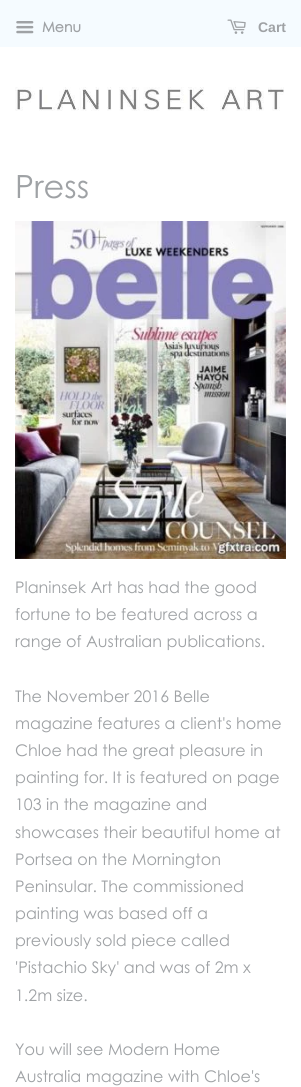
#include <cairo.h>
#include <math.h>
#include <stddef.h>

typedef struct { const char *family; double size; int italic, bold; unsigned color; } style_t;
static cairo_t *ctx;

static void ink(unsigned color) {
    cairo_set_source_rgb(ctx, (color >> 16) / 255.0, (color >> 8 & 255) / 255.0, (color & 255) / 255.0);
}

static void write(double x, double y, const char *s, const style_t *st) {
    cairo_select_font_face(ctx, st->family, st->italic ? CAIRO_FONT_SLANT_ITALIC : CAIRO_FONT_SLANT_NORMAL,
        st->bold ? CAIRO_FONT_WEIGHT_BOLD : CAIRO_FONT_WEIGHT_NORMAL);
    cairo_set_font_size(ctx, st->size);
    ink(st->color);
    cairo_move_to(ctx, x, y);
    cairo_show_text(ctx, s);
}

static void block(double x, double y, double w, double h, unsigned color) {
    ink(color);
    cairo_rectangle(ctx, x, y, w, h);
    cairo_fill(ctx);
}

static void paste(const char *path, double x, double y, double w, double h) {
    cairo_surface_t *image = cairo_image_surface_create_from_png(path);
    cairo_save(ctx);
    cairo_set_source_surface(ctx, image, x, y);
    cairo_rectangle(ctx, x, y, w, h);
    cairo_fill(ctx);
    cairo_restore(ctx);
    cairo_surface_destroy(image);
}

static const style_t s1 = {"Century Gothic", 14, 0, 1, 0x9fa2a5};
static const style_t s2 = {"Liberation Sans", 14, 0, 1, 0x9fa2a5};
static const style_t s3 = {"Century Gothic", 32, 0, 0, 0x9fa2a5};
static const style_t s4 = {"Century Gothic", 16, 0, 0, 0x9fa2a5};

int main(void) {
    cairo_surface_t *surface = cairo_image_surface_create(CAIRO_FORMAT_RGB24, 301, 1087);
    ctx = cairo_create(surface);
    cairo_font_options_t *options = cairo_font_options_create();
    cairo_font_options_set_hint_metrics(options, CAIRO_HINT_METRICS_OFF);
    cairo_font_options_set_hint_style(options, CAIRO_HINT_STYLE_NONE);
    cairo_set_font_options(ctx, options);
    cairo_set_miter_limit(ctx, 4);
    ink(0xffffff);
    cairo_paint(ctx);
    block(0, 0, 301, 47, 0xf5fbff);
    paste("pic1.png", 16, 21, 18, 13);
    write(42, 32, "Menu", &s1);
    paste("pic2.png", 227, 19, 19, 15);
    write(258, 32, "Cart", &s2);
    paste("pic3.png", 15, 87, 269, 24);
    write(15, 198, "Press", &s3);
    paste("pic4.png", 15, 221, 271, 338);
    write(15, 593, "Planinsek Art has had the good", &s4);
    write(15, 620, "fortune to be featured across a", &s4);
    write(15, 647, "range of Australian publications.", &s4);
    write(15, 702, "The November 2016 Belle", &s4);
    write(15, 729, "magazine features a client's home", &s4);
    write(15, 756, "Chloe had the great pleasure in", &s4);
    write(15, 783, "painting for. It is featured on page", &s4);
    write(15, 810, "103 in the magazine and", &s4);
    write(15, 838, "showcases their beautiful home at", &s4);
    write(15, 865, "Portsea on the Mornington", &s4);
    write(15, 892, "Peninsular. The commissioned", &s4);
    write(15, 919, "painting was based off a", &s4);
    write(15, 946, "previously sold piece called", &s4);
    write(15, 973, "'Pistachio Sky' and was of 2m x", &s4);
    write(15, 1001, "1.2m size.", &s4);
    write(15, 1055, "You will see Modern Home", &s4);
    write(15, 1082, "Australia magazine with Chloe's", &s4);
    cairo_surface_write_to_png(surface, "screenshot.png");
    cairo_font_options_destroy(options);
    cairo_destroy(ctx);
    cairo_surface_destroy(surface);
    return 0;
}
